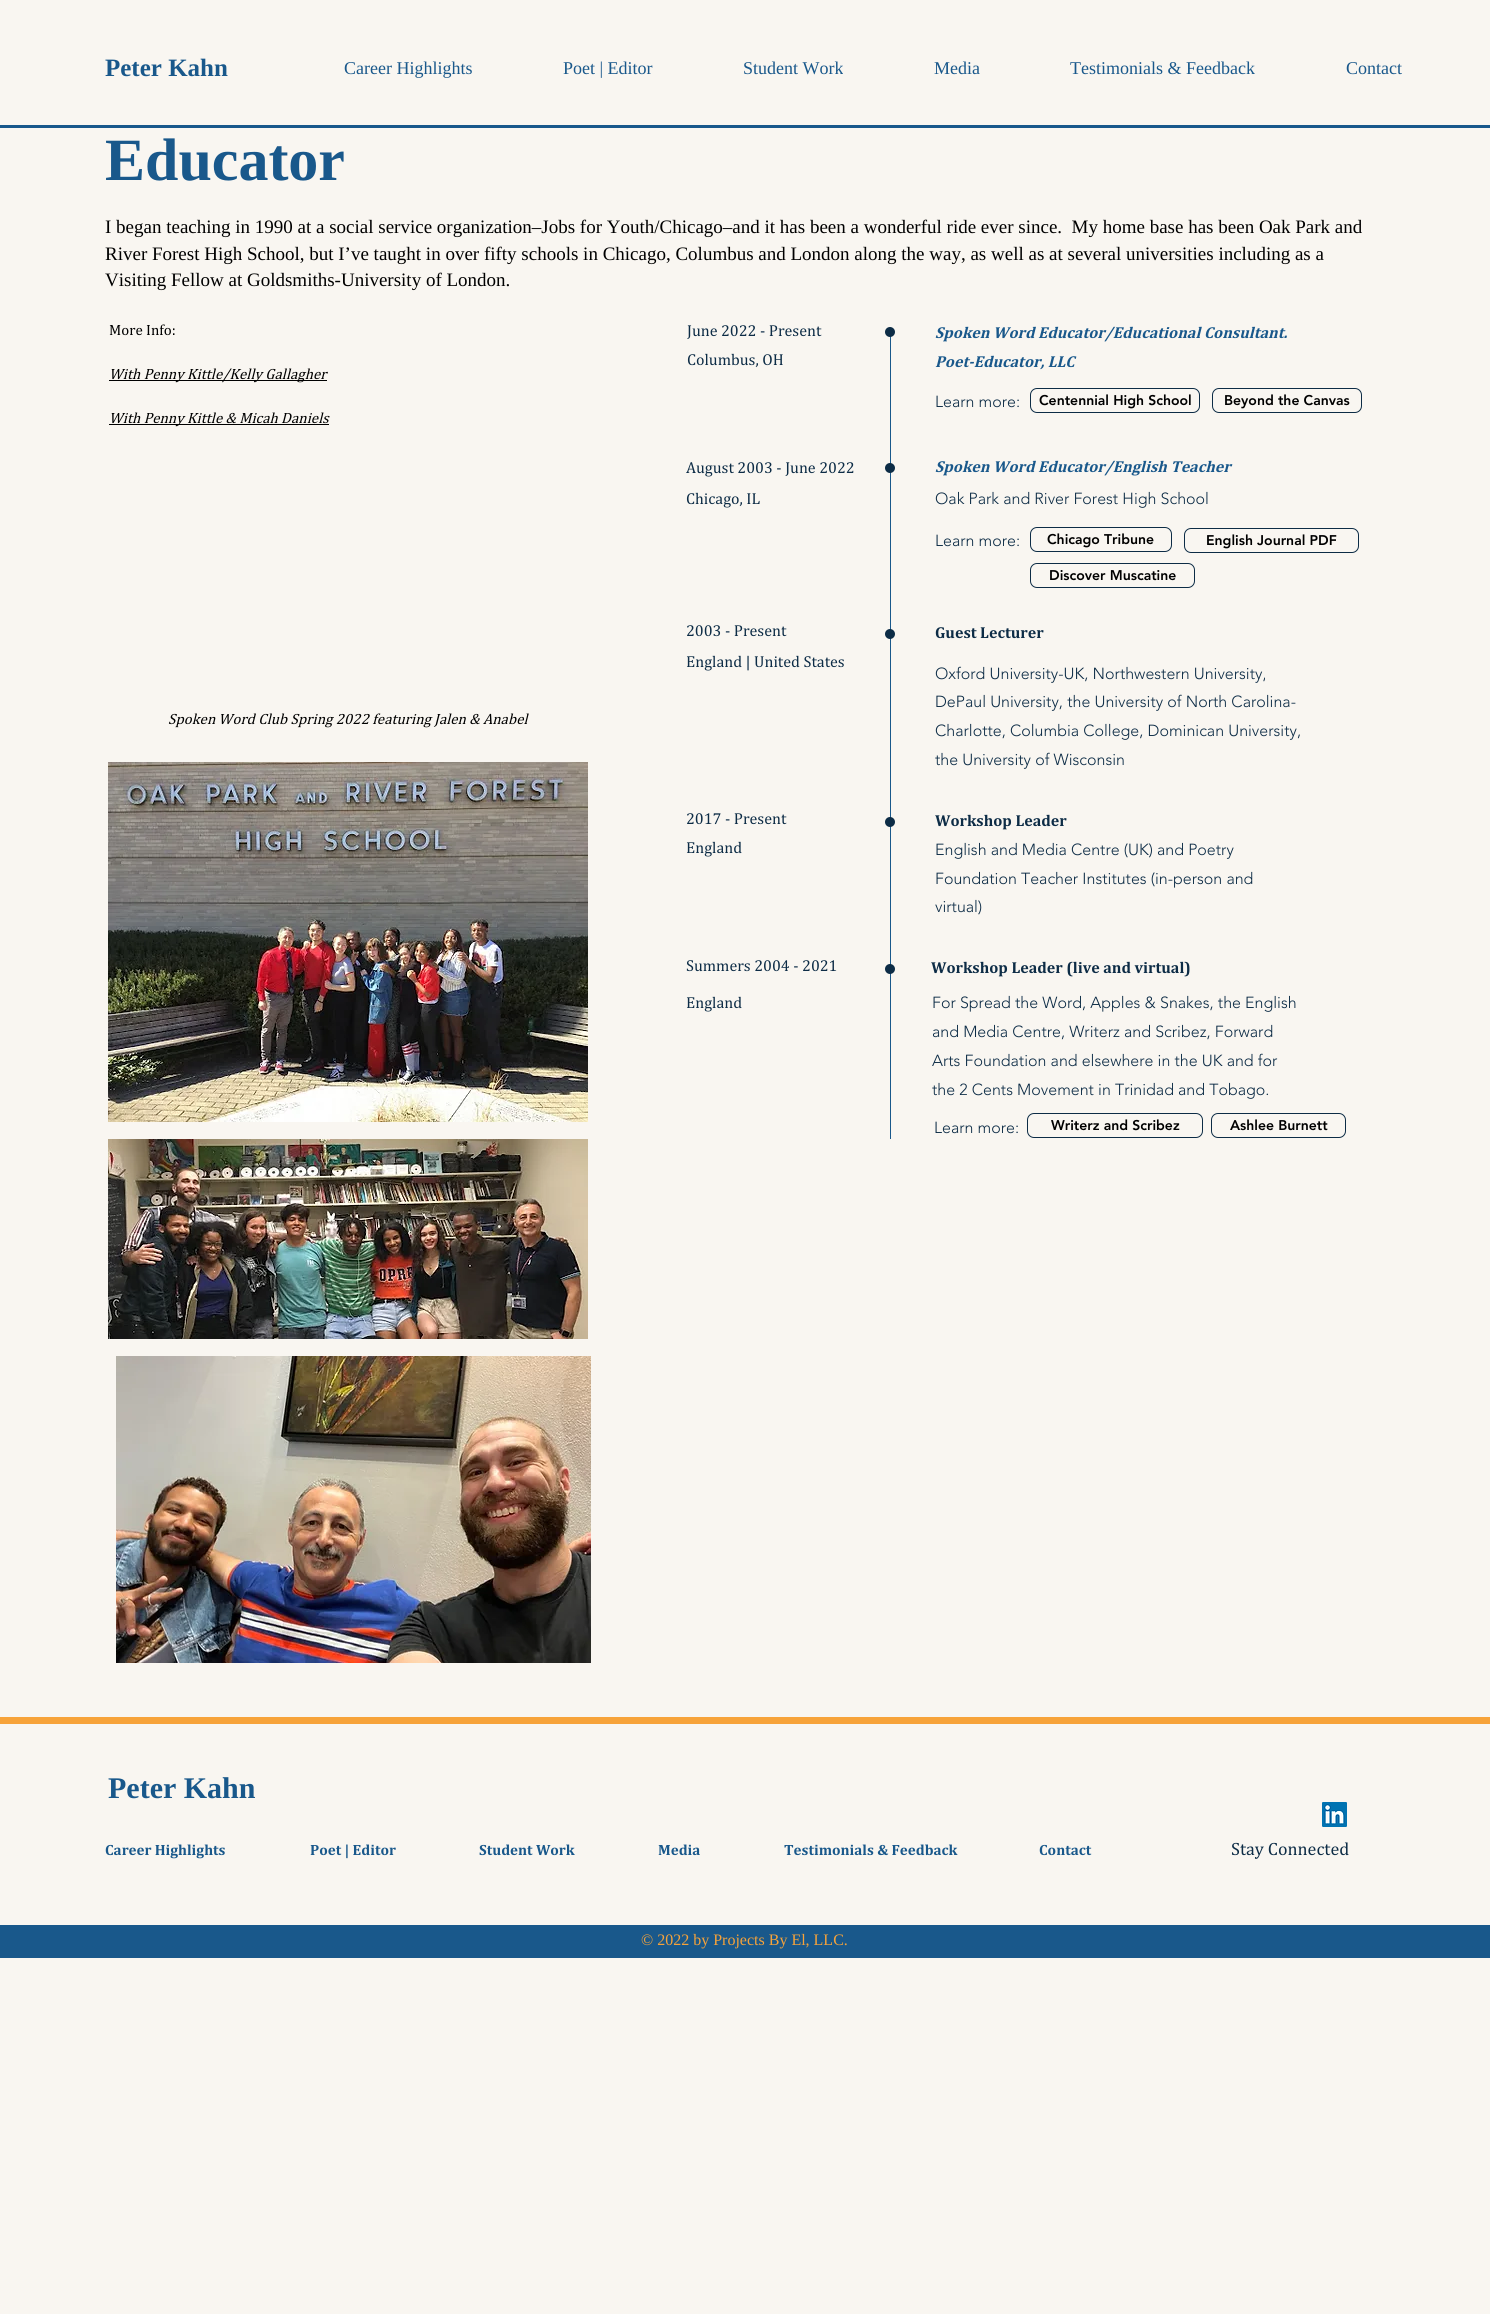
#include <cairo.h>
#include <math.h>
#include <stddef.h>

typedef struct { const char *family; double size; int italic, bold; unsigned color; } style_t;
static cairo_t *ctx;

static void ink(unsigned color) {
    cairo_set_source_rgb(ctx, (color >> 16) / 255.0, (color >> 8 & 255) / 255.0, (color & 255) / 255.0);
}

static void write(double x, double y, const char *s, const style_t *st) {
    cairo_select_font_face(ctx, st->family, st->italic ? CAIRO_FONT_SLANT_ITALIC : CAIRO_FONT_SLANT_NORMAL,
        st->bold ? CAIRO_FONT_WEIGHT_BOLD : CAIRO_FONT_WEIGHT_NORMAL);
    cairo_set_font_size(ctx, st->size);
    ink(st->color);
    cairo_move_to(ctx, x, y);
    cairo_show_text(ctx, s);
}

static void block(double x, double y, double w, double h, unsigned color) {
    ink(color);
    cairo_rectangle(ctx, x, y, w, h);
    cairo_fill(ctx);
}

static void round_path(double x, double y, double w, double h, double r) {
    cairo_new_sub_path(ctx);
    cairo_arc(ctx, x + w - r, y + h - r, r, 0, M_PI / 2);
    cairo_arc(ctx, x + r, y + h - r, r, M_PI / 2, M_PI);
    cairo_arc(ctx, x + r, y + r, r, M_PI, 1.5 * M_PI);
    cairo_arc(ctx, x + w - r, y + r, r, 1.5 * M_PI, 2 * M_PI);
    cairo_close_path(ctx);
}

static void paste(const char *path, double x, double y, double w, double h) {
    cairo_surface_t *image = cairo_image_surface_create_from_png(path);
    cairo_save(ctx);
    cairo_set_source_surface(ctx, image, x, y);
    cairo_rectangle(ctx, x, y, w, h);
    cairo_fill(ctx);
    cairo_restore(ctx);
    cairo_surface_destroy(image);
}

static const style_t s1 = {"Liberation Serif", 25, 0, 1, 0x19588b};
static const style_t s2 = {"Liberation Serif", 18, 0, 0, 0x19588b};
static const style_t s3 = {"Liberation Serif", 60, 0, 1, 0x19588b};
static const style_t s4 = {"Liberation Serif", 19, 0, 0, 0x000000};
static const style_t s5 = {"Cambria", 15, 0, 0, 0x000000};
static const style_t s6 = {"Cambria", 15, 1, 0, 0x000000};
static const style_t s7 = {"Cambria", 16, 0, 0, 0x0d2c46};
static const style_t s8 = {"Cambria", 16, 1, 1, 0x19588b};
static const style_t s9 = {"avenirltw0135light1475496 Light", 16, 0, 0, 0x0d2c46};
static const style_t s10 = {"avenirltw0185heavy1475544 Black", 14, 0, 0, 0x000000};
static const style_t s11 = {"Cambria", 16, 0, 1, 0x0d2c46};
static const style_t s12 = {"Liberation Serif", 30, 0, 1, 0x19588b};
static const style_t s13 = {"Cambria", 15, 0, 1, 0x19588b};
static const style_t s14 = {"Cambria", 18, 0, 0, 0x0d2c46};
static const style_t s15 = {"Liberation Serif", 16, 0, 0, 0xf7a33a};

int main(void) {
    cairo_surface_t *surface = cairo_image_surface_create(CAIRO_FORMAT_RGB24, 1490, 2314);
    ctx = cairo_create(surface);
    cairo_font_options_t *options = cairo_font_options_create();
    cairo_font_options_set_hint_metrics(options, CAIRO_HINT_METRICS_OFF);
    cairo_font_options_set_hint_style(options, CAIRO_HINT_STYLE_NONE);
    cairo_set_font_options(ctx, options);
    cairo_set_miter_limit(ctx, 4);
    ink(0xf9f6f1);
    cairo_paint(ctx);
    write(105, 76, "Peter Kahn", &s1);
    write(344, 74, "Career Highlights", &s2);
    write(563, 74, "Poet | Editor", &s2);
    write(743, 74, "Student Work", &s2);
    write(934, 74, "Media", &s2);
    write(1070, 74, "Testimonials & Feedback", &s2);
    write(1346, 74, "Contact", &s2);
    block(0, 125, 1490, 3, 0x19588b);
    write(105, 180, "Educator", &s3);
    write(105, 233, "I began teaching in 1990 at a social service organization–Jobs for Youth/Chicago–and it has been a wonderful ride ever since.  My home base has been Oak Park and", &s4);
    write(105, 260, "River Forest High School, but I’ve taught in over fifty schools in Chicago, Columbus and London along the way, as well as at several universities including as a", &s4);
    write(105, 286, "Visiting Fellow at Goldsmiths-University of London.", &s4);
    write(109, 335, "More Info:", &s5);
    block(109, 380, 218, 1, 0x000000);
    write(109, 379, "With Penny Kittle/Kelly Gallagher", &s6);
    block(109, 424, 220, 1, 0x000000);
    write(109, 423, "With Penny Kittle & Micah Daniels", &s6);
    write(687, 336, "June 2022 - Present", &s7);
    write(935, 338, "Spoken Word Educator/Educational Consultant.", &s8);
    write(935, 367, "Poet-Educator, LLC", &s8);
    write(687, 365, "Columbus, OH", &s7);
    write(935, 407, "Learn more:", &s9);
    round_path(1030.5, 388.5, 169, 24, 6.5);
    cairo_set_line_width(ctx, 1);
    cairo_stroke(ctx);
    write(1039, 405, "Centennial High School", &s10);
    round_path(1212.5, 388.5, 149, 24, 6.5);
    ink(0x0d2c46);
    cairo_stroke(ctx);
    write(1224, 405, "Beyond the Canvas", &s10);
    block(890, 331, 1, 808, 0x19588b);
    paste("pic1.png", 885, 327, 10, 10);
    write(686, 473, "August 2003 - June 2022", &s7);
    write(935, 472, "Spoken Word Educator/English Teacher", &s8);
    write(686, 504, "Chicago, IL", &s7);
    write(935, 504, "Oak Park and River Forest High School", &s9);
    write(935, 546, "Learn more:", &s9);
    round_path(1030.5, 527.5, 141, 24, 6.5);
    cairo_stroke(ctx);
    write(1047, 544, "Chicago Tribune", &s10);
    round_path(1184.5, 528.5, 174, 24, 6.5);
    ink(0x0d2c46);
    cairo_stroke(ctx);
    write(1206, 545, "English Journal PDF", &s10);
    round_path(1030.5, 563.5, 164, 24, 6.5);
    ink(0x0d2c46);
    cairo_stroke(ctx);
    write(1049, 580, "Discover Muscatine", &s10);
    paste("pic2.png", 885, 463, 10, 10);
    write(686, 636, "2003 - Present", &s7);
    write(935, 638, "Guest Lecturer", &s11);
    write(686, 667, "England | United States", &s7);
    write(935, 679, "Oxford University-UK, Northwestern University,", &s9);
    write(935, 707, "DePaul University, the University of North Carolina-", &s9);
    write(935, 736, "Charlotte, Columbia College, Dominican University,", &s9);
    write(935, 765, "the University of Wisconsin", &s9);
    paste("pic2.png", 885, 629, 10, 10);
    write(686, 824, "2017 - Present", &s7);
    write(935, 826, "Workshop Leader", &s11);
    write(686, 853, "England", &s7);
    write(935, 855, "English and Media Centre (UK) and Poetry", &s9);
    write(935, 884, "Foundation Teacher Institutes (in-person and", &s9);
    write(935, 912, "virtual)", &s9);
    paste("pic2.png", 885, 817, 10, 10);
    write(686, 971, "Summers 2004 - 2021", &s7);
    write(931, 973, "Workshop Leader (live and virtual)", &s11);
    write(686, 1008, "England", &s7);
    write(932, 1008, "For Spread the Word, Apples & Snakes, the English", &s9);
    write(932, 1037, "and Media Centre, Writerz and Scribez, Forward", &s9);
    write(932, 1066, "Arts Foundation and elsewhere in the UK and for", &s9);
    write(932, 1095, "the 2 Cents Movement in Trinidad and Tobago.", &s9);
    write(934, 1133, "Learn more:", &s9);
    round_path(1027.5, 1113.5, 175, 24, 6.5);
    cairo_stroke(ctx);
    write(1051, 1130, "Writerz and Scribez", &s10);
    round_path(1211.5, 1113.5, 134, 24, 6.5);
    ink(0x0d2c46);
    cairo_stroke(ctx);
    write(1230, 1130, "Ashlee Burnett", &s10);
    paste("pic2.png", 885, 964, 10, 10);
    paste("pic3.png", 116, 1356, 475, 307);
    write(168, 724, "Spoken Word Club Spring 2022 featuring Jalen & Anabel", &s6);
    paste("pic4.png", 108, 762, 480, 360);
    paste("pic5.png", 108, 1139, 480, 200);
    block(0, 1717, 1490, 7, 0xf7a33a);
    write(108, 1798, "Peter Kahn", &s12);
    paste("pic6.png", 1322, 1802, 25, 25);
    write(105, 1855, "Career Highlights", &s13);
    write(310, 1855, "Poet | Editor", &s13);
    write(479, 1855, "Student Work", &s13);
    write(658, 1855, "Media", &s13);
    write(784, 1855, "Testimonials & Feedback", &s13);
    write(1039, 1855, "Contact", &s13);
    write(1231, 1855, "Stay Connected", &s14);
    block(0, 1925, 1490, 33, 0x19588b);
    write(641, 1945, "© 2022 by Projects By El, LLC.", &s15);
    cairo_surface_write_to_png(surface, "screenshot.png");
    cairo_font_options_destroy(options);
    cairo_destroy(ctx);
    cairo_surface_destroy(surface);
    return 0;
}
